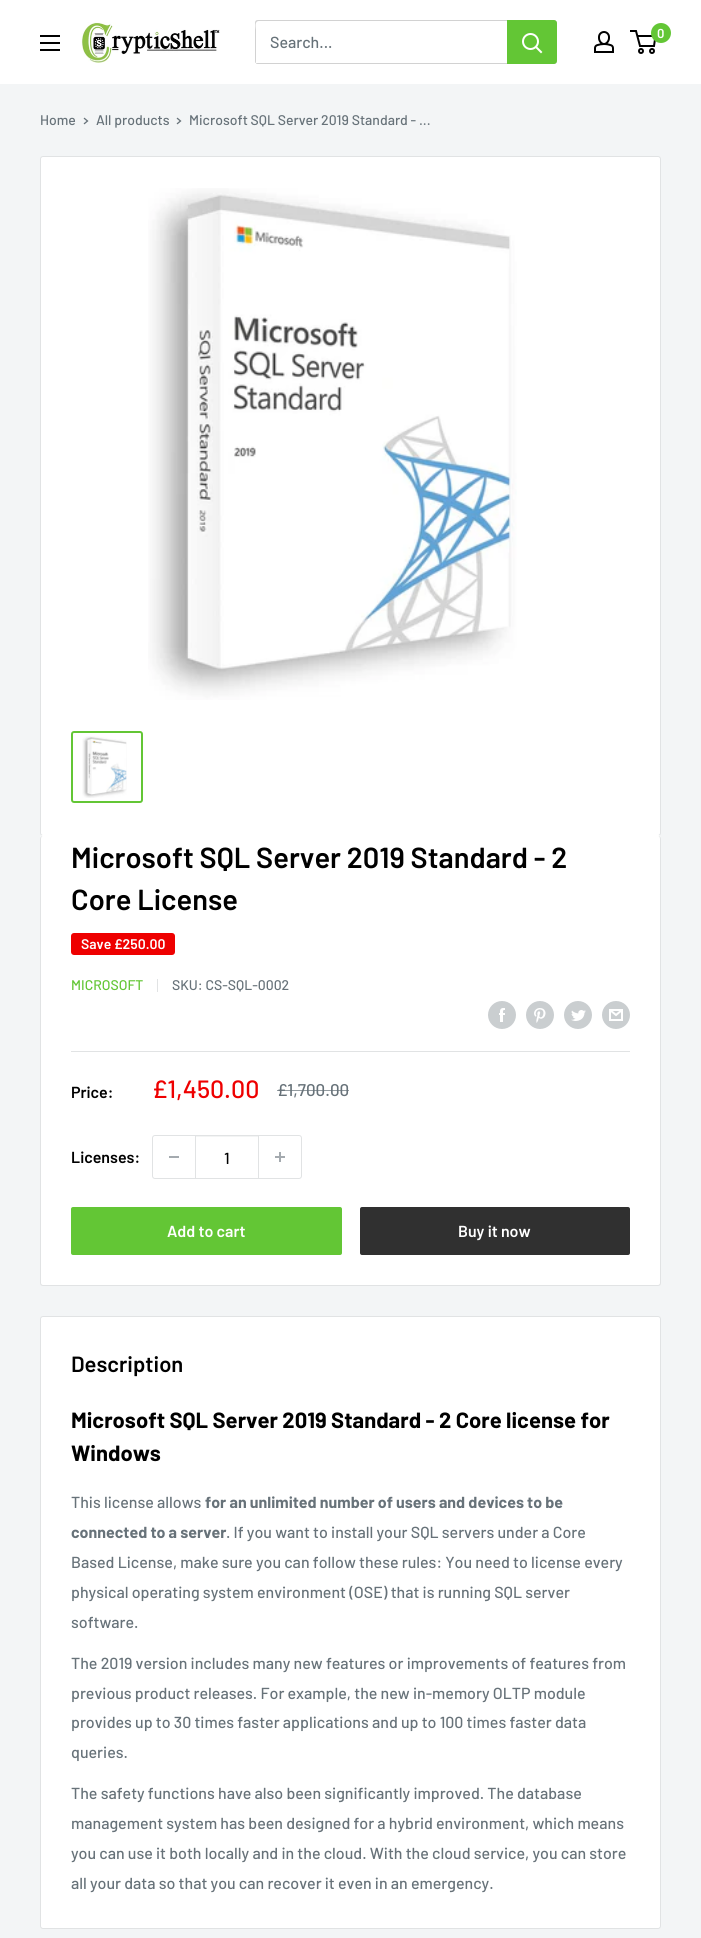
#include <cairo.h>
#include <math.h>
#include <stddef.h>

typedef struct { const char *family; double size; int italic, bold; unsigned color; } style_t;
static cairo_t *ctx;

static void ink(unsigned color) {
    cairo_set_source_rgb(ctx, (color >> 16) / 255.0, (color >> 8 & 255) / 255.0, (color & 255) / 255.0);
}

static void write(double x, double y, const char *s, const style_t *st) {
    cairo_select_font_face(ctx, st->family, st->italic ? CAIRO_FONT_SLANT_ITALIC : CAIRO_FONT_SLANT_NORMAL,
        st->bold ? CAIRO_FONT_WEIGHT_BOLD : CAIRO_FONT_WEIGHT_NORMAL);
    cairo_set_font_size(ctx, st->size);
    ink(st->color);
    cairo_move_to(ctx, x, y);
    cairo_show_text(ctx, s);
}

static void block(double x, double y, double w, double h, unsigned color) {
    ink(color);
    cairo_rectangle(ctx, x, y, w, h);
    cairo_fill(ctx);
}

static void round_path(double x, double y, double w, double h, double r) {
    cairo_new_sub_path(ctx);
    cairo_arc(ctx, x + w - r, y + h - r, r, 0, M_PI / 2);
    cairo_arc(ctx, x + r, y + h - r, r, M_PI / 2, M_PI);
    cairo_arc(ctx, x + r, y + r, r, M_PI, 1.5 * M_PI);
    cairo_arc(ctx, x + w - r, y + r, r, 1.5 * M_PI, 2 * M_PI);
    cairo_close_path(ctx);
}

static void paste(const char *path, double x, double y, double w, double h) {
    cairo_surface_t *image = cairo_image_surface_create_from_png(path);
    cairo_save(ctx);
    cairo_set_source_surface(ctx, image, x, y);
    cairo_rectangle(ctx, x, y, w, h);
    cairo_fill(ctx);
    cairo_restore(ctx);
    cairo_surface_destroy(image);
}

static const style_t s1 = {"Barlow SemiBold", 13, 0, 0, 0xffffff};
static const style_t s2 = {"Barlow Medium", 16, 0, 0, 0x677279};
static const style_t s3 = {"Barlow Medium", 14, 0, 0, 0x677279};
static const style_t s4 = {"Barlow SemiBold", 29, 0, 0, 0x000000};
static const style_t s5 = {"Barlow SemiBold", 14, 0, 0, 0xffffff};
static const style_t s6 = {"Barlow Medium", 14, 0, 0, 0x63c635};
static const style_t s7 = {"Barlow SemiBold", 16, 0, 0, 0x000000};
static const style_t s8 = {"Barlow Medium", 25, 0, 0, 0xee0000};
static const style_t s9 = {"Barlow Medium", 17, 0, 0, 0x677279};
static const style_t s10 = {"Barlow Medium", 16, 0, 0, 0x000000};
static const style_t s11 = {"Barlow SemiBold", 16, 0, 0, 0xffffff};
static const style_t s12 = {"Barlow SemiBold", 22, 0, 0, 0x000000};
static const style_t s13 = {"Barlow", 22, 0, 1, 0x000000};
static const style_t s14 = {"Barlow", 16, 0, 1, 0x677279};

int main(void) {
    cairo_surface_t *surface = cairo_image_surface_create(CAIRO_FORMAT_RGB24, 701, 1938);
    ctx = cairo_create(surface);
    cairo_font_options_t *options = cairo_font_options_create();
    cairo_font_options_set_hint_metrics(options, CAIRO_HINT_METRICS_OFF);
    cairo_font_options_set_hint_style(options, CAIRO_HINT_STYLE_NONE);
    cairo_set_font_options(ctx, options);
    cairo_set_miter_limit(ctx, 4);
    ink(0xf3f5f6);
    cairo_paint(ctx);
    block(0, 0, 701, 84, 0xffffff);
    paste("pic1.png", 81, 22, 139, 41);
    paste("pic2.png", 594, 31, 20, 22);
    cairo_arc(ctx, 641, 51, 2, 0, 2 * M_PI);
    ink(0x010101);
    cairo_stroke(ctx);
    cairo_arc(ctx, 652, 51, 2, 0, 2 * M_PI);
    cairo_stroke(ctx);
    cairo_new_path(ctx);
    cairo_move_to(ctx, 637.5, 36);
    cairo_line_to(ctx, 655.5, 36);
    cairo_line_to(ctx, 654, 46);
    cairo_line_to(ctx, 640, 46);
    cairo_line_to(ctx, 636, 31);
    cairo_line_to(ctx, 630, 31);
    cairo_stroke(ctx);
    ink(0x63c635);
    cairo_arc(ctx, 661, 33, 10, 0, 2 * M_PI);
    cairo_fill(ctx);
    write(657, 38, "0", &s1);
    paste("pic3.png", 40, 35, 20, 16);
    ink(0xd2d2d2);
    cairo_new_path(ctx);
    cairo_move_to(ctx, 256, 63);
    cairo_curve_to(ctx, 256, 64, 257, 64, 258, 64);
    cairo_line_to(ctx, 554, 64);
    cairo_curve_to(ctx, 556, 64, 557, 63, 557, 61);
    cairo_line_to(ctx, 557, 23);
    cairo_curve_to(ctx, 557, 22, 557, 21, 556, 21);
    cairo_line_to(ctx, 556, 54);
    cairo_curve_to(ctx, 556, 56, 558, 63, 553, 63);
    cairo_close_path(ctx);
    cairo_fill(ctx);
    cairo_new_path(ctx);
    cairo_move_to(ctx, 259, 21);
    cairo_line_to(ctx, 556, 21);
    cairo_curve_to(ctx, 556, 20, 555, 20, 554, 20);
    cairo_line_to(ctx, 258, 20);
    cairo_curve_to(ctx, 256, 20, 255, 21, 255, 23);
    cairo_line_to(ctx, 255, 61);
    cairo_curve_to(ctx, 255, 62, 255, 63, 256, 63);
    cairo_line_to(ctx, 256, 30);
    cairo_curve_to(ctx, 256, 28, 254, 21, 259, 21);
    cairo_close_path(ctx);
    cairo_fill(ctx);
    write(270, 48, "Search...", &s2);
    ink(0x63c635);
    cairo_new_path(ctx);
    cairo_move_to(ctx, 507, 20);
    cairo_line_to(ctx, 554, 20);
    cairo_curve_to(ctx, 555.5, 20, 557, 21.5, 557, 23);
    cairo_line_to(ctx, 557, 61);
    cairo_curve_to(ctx, 557, 62.5, 555.5, 64, 554, 64);
    cairo_line_to(ctx, 507, 64);
    cairo_close_path(ctx);
    cairo_fill(ctx);
    cairo_new_path(ctx);
    cairo_move_to(ctx, 541, 52);
    cairo_line_to(ctx, 536, 47);
    ink(0xffffff);
    cairo_set_line_cap(ctx, CAIRO_LINE_CAP_SQUARE);
    cairo_stroke(ctx);
    cairo_arc(ctx, 530.5, 41.5, 7.5, 0, 2 * M_PI);
    cairo_set_line_cap(ctx, CAIRO_LINE_CAP_BUTT);
    cairo_stroke(ctx);
    write(40, 125, "Home", &s3);
    cairo_new_path(ctx);
    cairo_move_to(ctx, 84.5, 118.5);
    cairo_line_to(ctx, 87.5, 121);
    cairo_line_to(ctx, 84.5, 123.5);
    cairo_set_line_width(ctx, 1.3);
    cairo_set_line_cap(ctx, CAIRO_LINE_CAP_SQUARE);
    cairo_stroke(ctx);
    write(96, 125, "All products", &s3);
    cairo_new_path(ctx);
    cairo_move_to(ctx, 177.5, 118.5);
    cairo_line_to(ctx, 180.5, 121);
    cairo_line_to(ctx, 177.5, 123.5);
    cairo_stroke(ctx);
    write(189, 125, "Microsoft SQL Server 2019 Standard - ...", &s3);
    ink(0xffffff);
    round_path(40.5, 156.5, 620, 679, 2.5);
    cairo_fill_preserve(ctx);
    ink(0xe1e3e4);
    cairo_set_line_width(ctx, 1);
    cairo_set_line_cap(ctx, CAIRO_LINE_CAP_BUTT);
    cairo_stroke(ctx);
    paste("pic4.png", 148, 188, 369, 512);
    round_path(72, 732, 70, 70, 2);
    ink(0x63c635);
    cairo_set_line_width(ctx, 2);
    cairo_stroke(ctx);
    paste("pic5.png", 82, 736, 45, 62);
    ink(0xffffff);
    cairo_new_path(ctx);
    cairo_move_to(ctx, 43, 835);
    cairo_curve_to(ctx, 41, 835, 40, 837, 40, 839);
    cairo_curve_to(ctx, 40, 837, 41, 836, 43, 836);
    cairo_line_to(ctx, 658, 836);
    cairo_curve_to(ctx, 660, 836, 661, 837, 661, 839);
    cairo_curve_to(ctx, 661, 837, 660, 835, 658, 835);
    cairo_close_path(ctx);
    cairo_fill(ctx);
    round_path(40, 836, 621, 450, 3);
    cairo_fill(ctx);
    ink(0xe1e3e4);
    cairo_set_fill_rule(ctx, CAIRO_FILL_RULE_EVEN_ODD);
    cairo_new_path(ctx);
    cairo_move_to(ctx, 43, 836);
    cairo_line_to(ctx, 658, 836);
    cairo_curve_to(ctx, 660, 836, 661, 837, 661, 839);
    cairo_line_to(ctx, 661, 1283);
    cairo_curve_to(ctx, 661, 1285, 660, 1286, 658, 1286);
    cairo_line_to(ctx, 43, 1286);
    cairo_curve_to(ctx, 41, 1286, 40, 1285, 40, 1283);
    cairo_line_to(ctx, 40, 839);
    cairo_curve_to(ctx, 40, 837, 41, 836, 43, 836);
    cairo_close_path(ctx);
    cairo_move_to(ctx, 43, 836);
    cairo_line_to(ctx, 658, 836);
    cairo_curve_to(ctx, 659, 836, 660, 837, 660, 839);
    cairo_line_to(ctx, 660, 1283);
    cairo_curve_to(ctx, 660, 1284, 659, 1285, 658, 1285);
    cairo_line_to(ctx, 43, 1285);
    cairo_curve_to(ctx, 42, 1285, 41, 1284, 41, 1283);
    cairo_line_to(ctx, 41, 839);
    cairo_curve_to(ctx, 41, 837, 42, 836, 43, 836);
    cairo_close_path(ctx);
    cairo_fill(ctx);
    write(71, 868, "Microsoft SQL Server 2019 Standard - 2", &s4);
    write(71, 910, "Core License", &s4);
    ink(0xee0000);
    round_path(71, 933, 104, 22, 3);
    cairo_fill(ctx);
    write(81, 949, "Save £250.00", &s5);
    write(71, 990, "MICROSOFT", &s6);
    block(157, 979, 1, 13, 0xe1e3e4);
    write(172, 990, "SKU: CS-SQL-0002", &s3);
    paste("pic6.png", 488, 1001, 28, 28);
    paste("pic7.png", 526, 1001, 28, 28);
    paste("pic8.png", 564, 1001, 28, 28);
    paste("pic9.png", 602, 1001, 28, 28);
    block(71, 1051, 559, 1, 0xe1e3e4);
    write(71, 1098, "Price:", &s7);
    write(152, 1098, "£1,450.00", &s8);
    write(277, 1096, "£1,700.00", &s9);
    cairo_set_source_rgba(ctx, 0.404, 0.447, 0.475, 0.7);
    cairo_rectangle(ctx, 277, 1090, 72, 1);
    cairo_fill(ctx);
    write(71, 1163, "Licenses:", &s7);
    round_path(152.5, 1135.5, 149, 43, 2.5);
    ink(0xe1e3e4);
    cairo_set_line_width(ctx, 1);
    cairo_stroke(ctx);
    block(169, 1156, 10, 2, 0xa4aaaf);
    block(196, 1136, 62, 1, 0xf3f4f4);
    block(258, 1136, 1, 42, 0xe1e3e4);
    block(195, 1136, 1, 42, 0xe1e3e4);
    write(224, 1164, "1", &s10);
    paste("pic10.png", 275, 1152, 10, 10);
    ink(0x63c635);
    round_path(71, 1207, 271, 48, 2);
    cairo_fill(ctx);
    write(167, 1237, "Add to cart", &s11);
    ink(0x303030);
    round_path(360, 1207, 270, 48, 2);
    cairo_fill(ctx);
    write(458, 1237, "Buy it now", &s11);
    round_path(40.5, 1316.5, 620, 612, 2.5);
    cairo_fill_preserve(ctx);
    ink(0xe1e3e4);
    cairo_stroke(ctx);
    write(71, 1372, "Description", &s12);
    write(71, 1428, "Microsoft SQL Server 2019 Standard - 2 Core license for", &s13);
    write(71, 1461, "Windows", &s13);
    write(71, 1508, "This license allows", &s2);
    write(205, 1508, "for an unlimited number of users and devices to be", &s14);
    write(71, 1538, "connected to a server", &s14);
    write(226, 1538, ". If you want to install your SQL servers under a Core", &s2);
    write(71, 1568, "Based License, make sure you can follow these rules: You need to license every", &s2);
    write(71, 1598, "physical operating system environment (OSE) that is running SQL server", &s2);
    write(71, 1628, "software.", &s2);
    write(71, 1669, "The 2019 version includes many new features or improvements of features from", &s2);
    write(71, 1699, "previous product releases. For example, the new in-memory OLTP module", &s2);
    write(71, 1728, "provides up to 30 times faster applications and up to 100 times faster data", &s2);
    write(71, 1758, "queries.", &s2);
    write(71, 1799, "The safety functions have also been significantly improved. The database", &s2);
    write(71, 1829, "management system has been designed for a hybrid environment, which means", &s2);
    write(71, 1859, "you can use it both locally and in the cloud. With the cloud service, you can store", &s2);
    write(71, 1889, "all your data so that you can recover it even in an emergency.", &s2);
    cairo_surface_write_to_png(surface, "screenshot.png");
    cairo_font_options_destroy(options);
    cairo_destroy(ctx);
    cairo_surface_destroy(surface);
    return 0;
}
